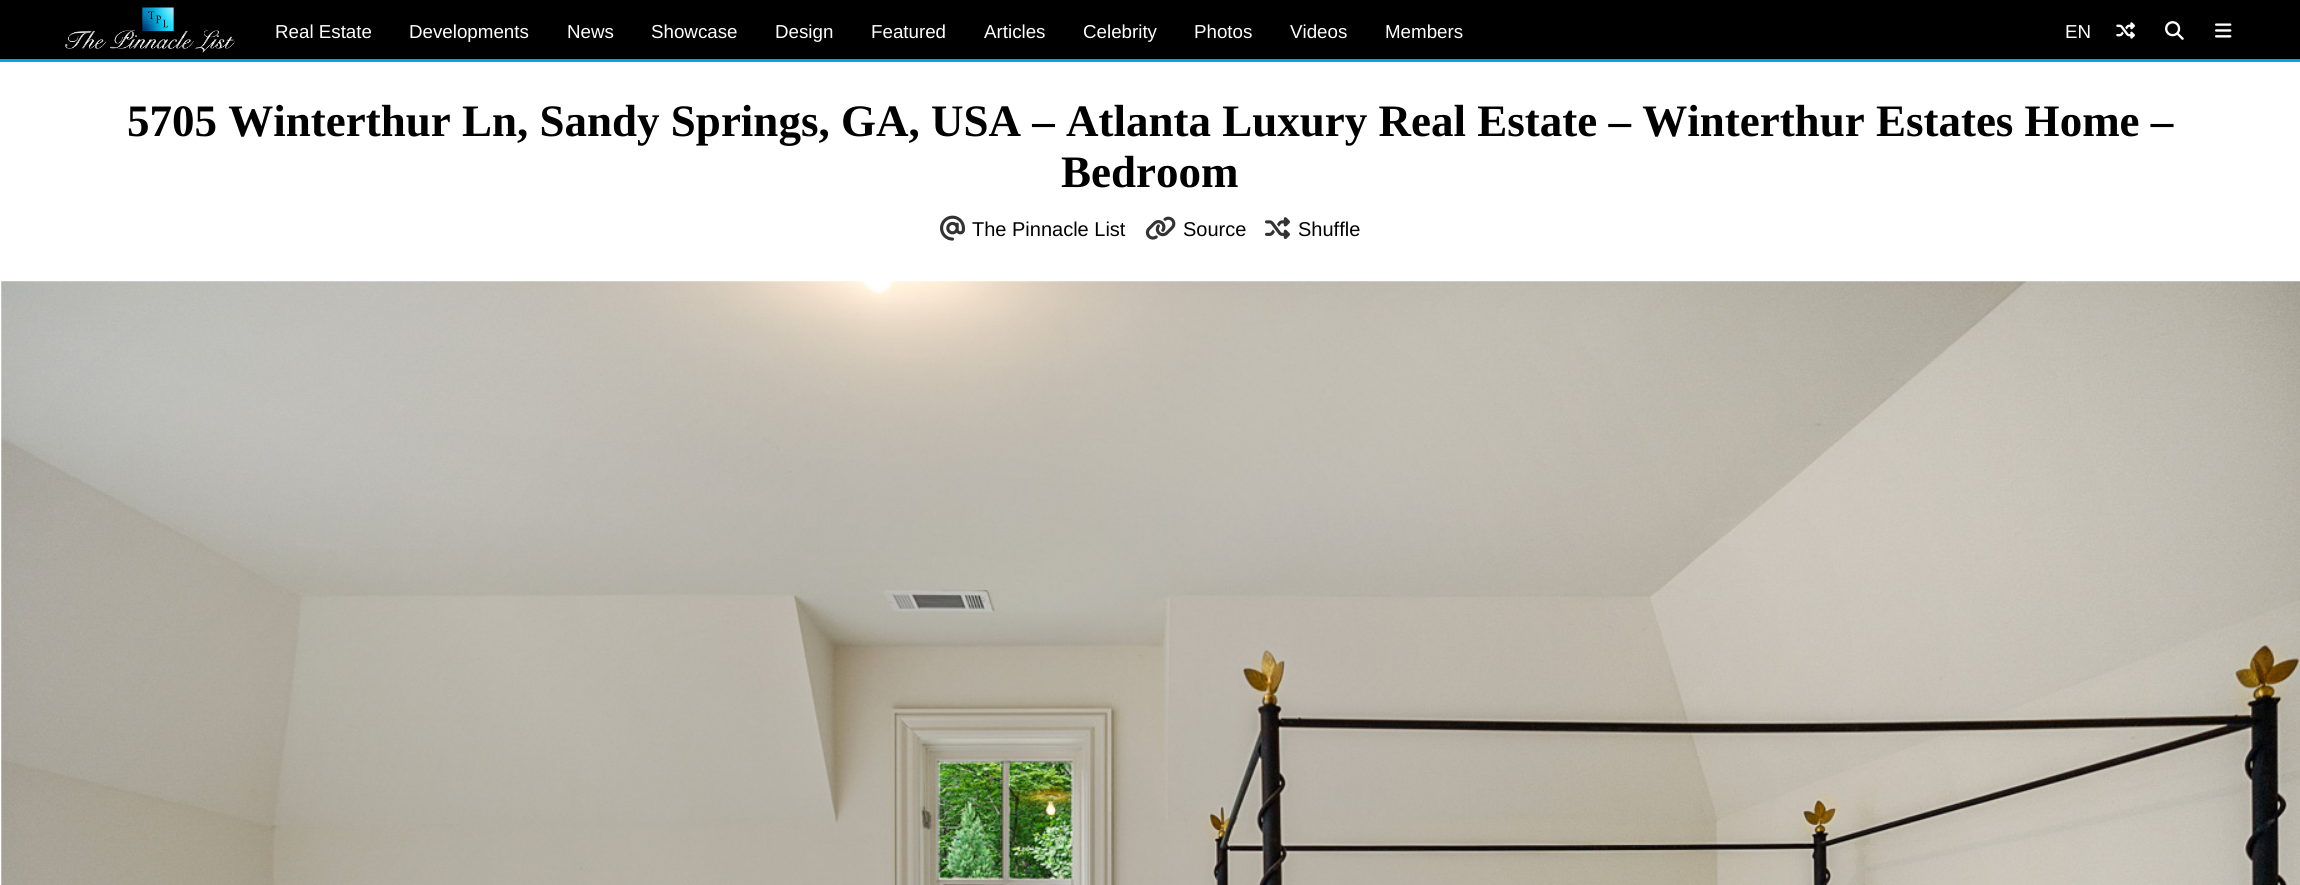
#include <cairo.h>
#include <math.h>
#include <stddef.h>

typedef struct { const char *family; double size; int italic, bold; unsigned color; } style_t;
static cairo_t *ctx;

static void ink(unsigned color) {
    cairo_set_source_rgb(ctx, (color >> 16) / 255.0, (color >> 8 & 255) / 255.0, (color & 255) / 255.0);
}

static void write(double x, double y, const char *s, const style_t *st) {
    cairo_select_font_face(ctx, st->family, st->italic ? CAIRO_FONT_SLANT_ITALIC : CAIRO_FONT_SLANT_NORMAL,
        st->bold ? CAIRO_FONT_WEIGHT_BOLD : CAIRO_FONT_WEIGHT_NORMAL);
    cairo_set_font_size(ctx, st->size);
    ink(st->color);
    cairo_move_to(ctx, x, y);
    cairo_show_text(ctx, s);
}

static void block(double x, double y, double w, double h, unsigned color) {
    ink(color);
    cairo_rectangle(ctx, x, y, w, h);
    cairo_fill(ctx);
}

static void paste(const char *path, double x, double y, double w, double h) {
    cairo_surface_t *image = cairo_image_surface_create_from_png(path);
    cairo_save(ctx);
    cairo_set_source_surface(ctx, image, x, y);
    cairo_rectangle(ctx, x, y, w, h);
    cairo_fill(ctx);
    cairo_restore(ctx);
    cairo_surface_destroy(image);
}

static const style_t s1 = {"Liberation Sans", 18.75, 0, 0, 0xffffff};
static const style_t s2 = {"Liberation Serif", 45, 0, 1, 0x000000};
static const style_t s3 = {"Liberation Sans", 20, 0, 0, 0x000000};

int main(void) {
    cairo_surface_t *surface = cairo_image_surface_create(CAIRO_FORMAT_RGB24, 2300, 885);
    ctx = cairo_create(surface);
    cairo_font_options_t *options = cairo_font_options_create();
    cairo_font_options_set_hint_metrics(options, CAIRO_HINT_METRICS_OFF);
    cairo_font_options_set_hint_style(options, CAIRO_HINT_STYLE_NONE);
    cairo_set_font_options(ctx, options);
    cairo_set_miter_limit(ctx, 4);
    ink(0x000000);
    cairo_paint(ctx);
    block(0, 62, 2300, 823, 0xffffff);
    block(0, 59, 2300, 3, 0x00a4e8);
    paste("pic1.png", 65, 7, 170, 46);
    write(275, 38, "Real Estate", &s1);
    write(409, 38, "Developments", &s1);
    write(567, 38, "News", &s1);
    write(651, 38, "Showcase", &s1);
    write(775, 38, "Design", &s1);
    write(871, 38, "Featured", &s1);
    write(984, 38, "Articles", &s1);
    write(1083, 38, "Celebrity", &s1);
    write(1194, 38, "Photos", &s1);
    write(1290, 38, "Videos", &s1);
    write(1385, 38, "Members", &s1);
    write(2065, 38, "EN", &s1);
    paste("pic2.png", 2116, 22, 19, 17);
    paste("pic3.png", 2165, 21, 19, 19);
    paste("pic4.png", 2215, 23, 17, 15);
    write(127, 136, "5705 Winterthur Ln, Sandy Springs, GA, USA – Atlanta Luxury Real Estate – Winterthur Estates Home –", &s2);
    write(1061, 187, "Bedroom", &s2);
    paste("pic5.png", 940, 215, 25, 26);
    write(972, 236, "The Pinnacle List", &s3);
    paste("pic6.png", 1145, 216, 31, 24);
    write(1183, 236, "Source", &s3);
    paste("pic7.png", 1265, 217, 25, 22);
    write(1298, 236, "Shuffle", &s3);
    paste("pic8.png", 1, 281, 2299, 604);
    cairo_surface_write_to_png(surface, "screenshot.png");
    cairo_font_options_destroy(options);
    cairo_destroy(ctx);
    cairo_surface_destroy(surface);
    return 0;
}
